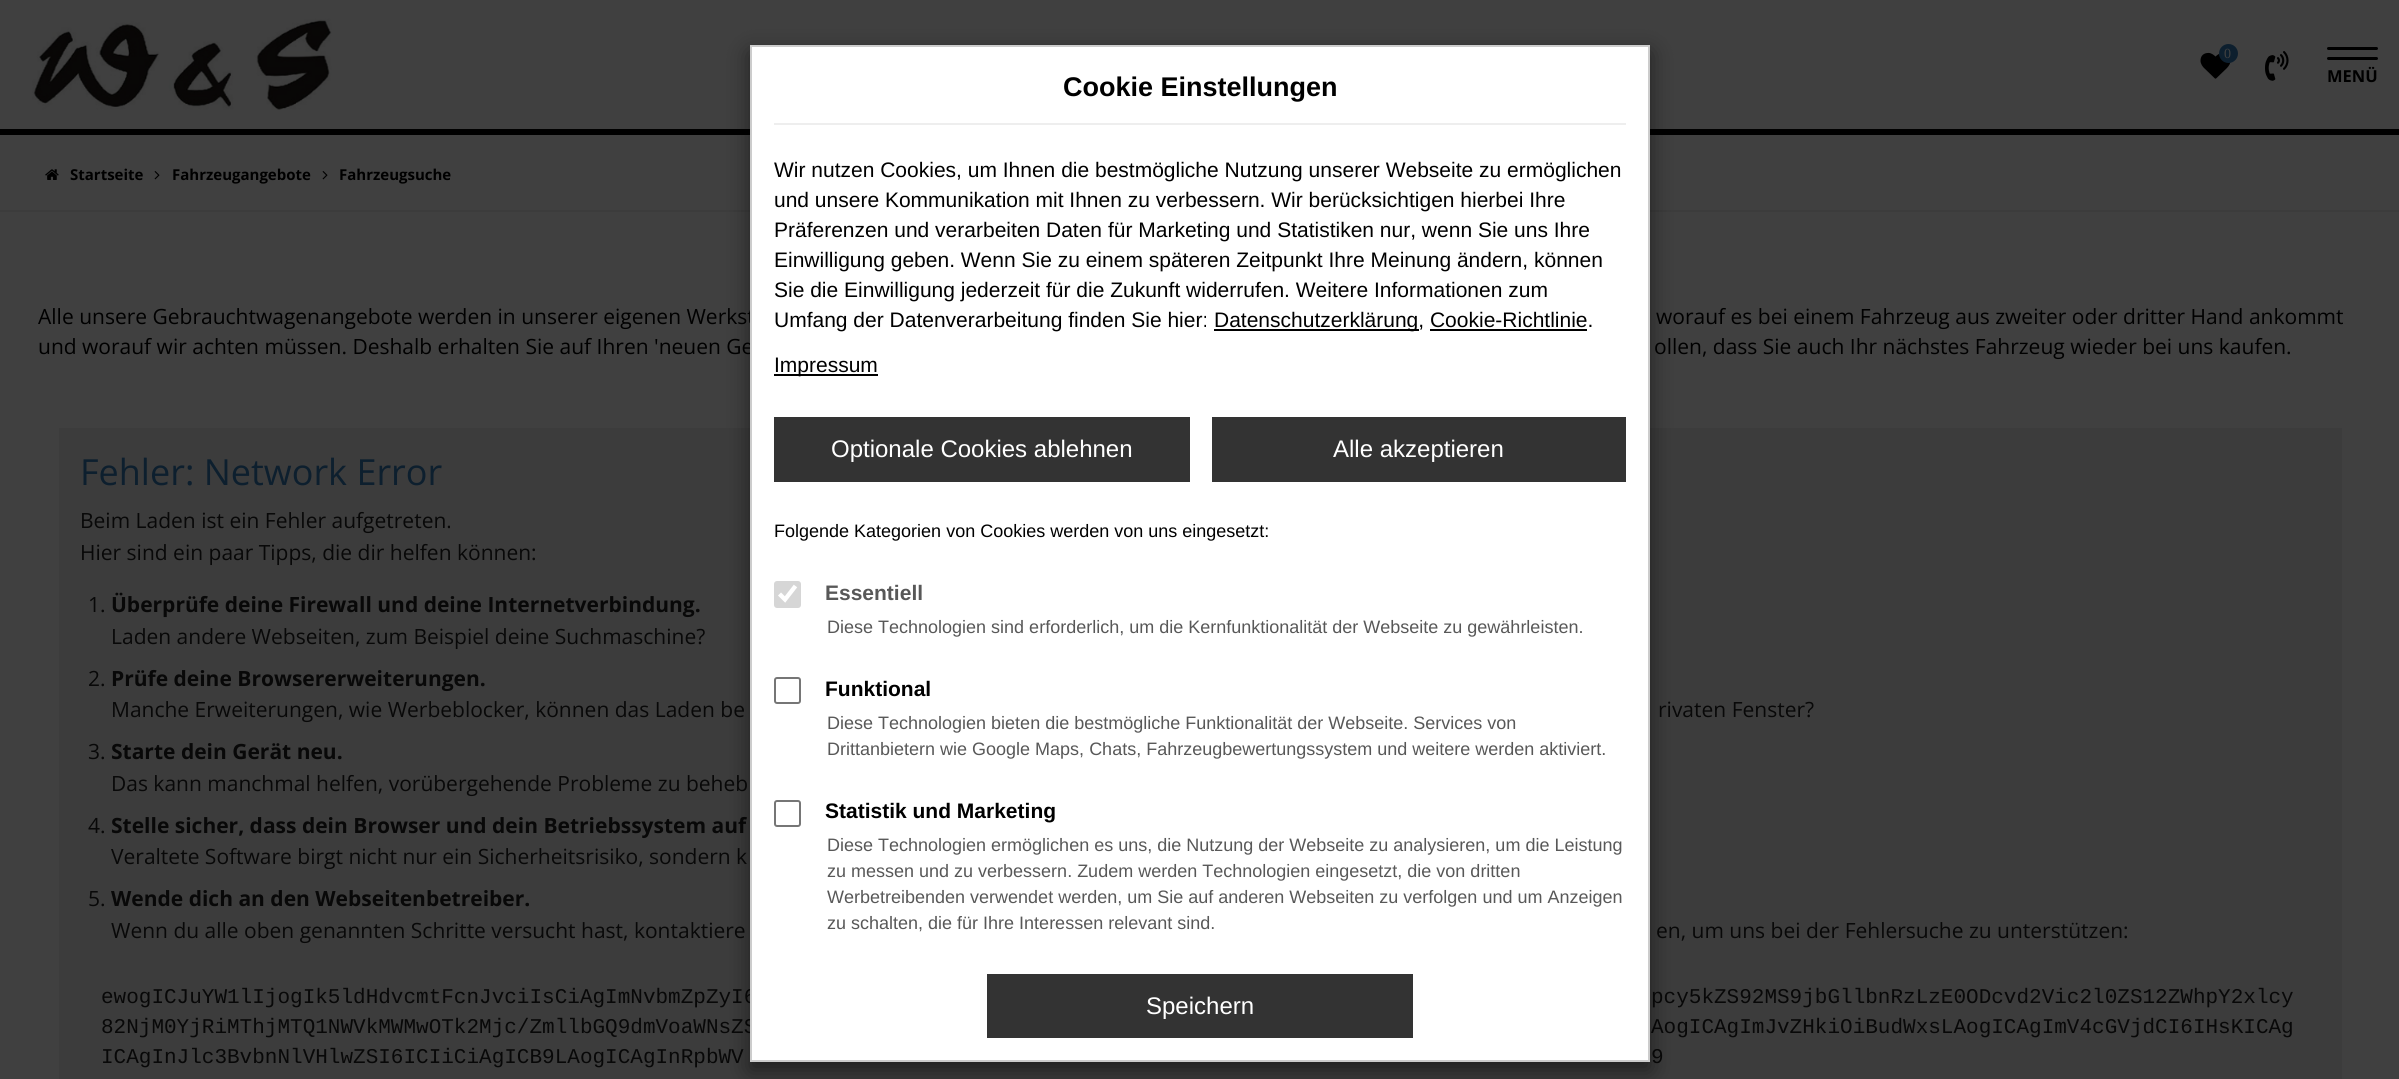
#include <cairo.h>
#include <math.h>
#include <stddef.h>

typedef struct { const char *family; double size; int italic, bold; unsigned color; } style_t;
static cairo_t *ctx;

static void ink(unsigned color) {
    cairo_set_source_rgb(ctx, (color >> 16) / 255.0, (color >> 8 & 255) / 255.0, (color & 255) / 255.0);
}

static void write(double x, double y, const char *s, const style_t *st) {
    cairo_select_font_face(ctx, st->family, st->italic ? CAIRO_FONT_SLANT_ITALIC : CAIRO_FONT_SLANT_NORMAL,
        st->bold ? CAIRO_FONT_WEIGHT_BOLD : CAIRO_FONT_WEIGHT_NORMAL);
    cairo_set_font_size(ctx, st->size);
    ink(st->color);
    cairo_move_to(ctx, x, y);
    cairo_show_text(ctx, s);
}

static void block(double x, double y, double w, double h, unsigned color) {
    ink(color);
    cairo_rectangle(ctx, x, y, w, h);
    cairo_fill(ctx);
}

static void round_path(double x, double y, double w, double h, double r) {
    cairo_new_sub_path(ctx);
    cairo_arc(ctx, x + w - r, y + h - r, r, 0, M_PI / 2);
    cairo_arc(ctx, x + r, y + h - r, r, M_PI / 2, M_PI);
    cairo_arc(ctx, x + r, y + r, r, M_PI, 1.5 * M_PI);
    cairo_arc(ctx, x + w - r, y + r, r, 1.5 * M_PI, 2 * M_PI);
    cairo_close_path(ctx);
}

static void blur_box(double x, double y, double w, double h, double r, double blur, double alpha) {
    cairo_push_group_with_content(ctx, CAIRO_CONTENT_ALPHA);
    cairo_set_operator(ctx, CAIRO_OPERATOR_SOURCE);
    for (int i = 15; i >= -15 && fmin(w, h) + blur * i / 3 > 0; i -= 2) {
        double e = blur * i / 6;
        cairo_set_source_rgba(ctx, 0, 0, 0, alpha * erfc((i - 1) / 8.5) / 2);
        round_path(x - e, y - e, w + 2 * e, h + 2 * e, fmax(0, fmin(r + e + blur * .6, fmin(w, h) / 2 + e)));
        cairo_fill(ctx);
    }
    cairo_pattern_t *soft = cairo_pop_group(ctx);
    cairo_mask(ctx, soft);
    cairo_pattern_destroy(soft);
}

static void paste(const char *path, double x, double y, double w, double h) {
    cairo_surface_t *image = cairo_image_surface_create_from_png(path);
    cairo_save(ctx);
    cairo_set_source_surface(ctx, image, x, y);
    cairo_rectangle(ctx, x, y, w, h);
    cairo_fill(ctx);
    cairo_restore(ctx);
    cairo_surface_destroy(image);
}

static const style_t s1 = {"Liberation Serif", 14, 0, 0, 0x404040};
static const style_t s2 = {"Open Sans", 16.5, 0, 1, 0x000000};
static const style_t s3 = {"Open Sans", 15, 0, 1, 0x000000};
static const style_t s4 = {"Open Sans", 21, 0, 0, 0x000000};
static const style_t s5 = {"Open Sans", 36, 0, 0, 0x0d1f2e};
static const style_t s6 = {"Open Sans", 21, 0, 0, 0x080808};
static const style_t s7 = {"Open Sans", 21, 0, 1, 0x080808};
static const style_t s8 = {"Liberation Mono", 21, 0, 0, 0x080808};
static const style_t s9 = {"Liberation Sans", 27, 0, 1, 0x000000};
static const style_t s10 = {"Liberation Sans", 21, 0, 0, 0x000000};
static const style_t s11 = {"Liberation Sans", 24, 0, 0, 0xffffff};
static const style_t s12 = {"Liberation Sans", 18, 0, 0, 0x000000};
static const style_t s13 = {"Liberation Sans", 21, 0, 1, 0x585858};
static const style_t s14 = {"Liberation Sans", 18, 0, 0, 0x585858};
static const style_t s15 = {"Liberation Sans", 21, 0, 1, 0x000000};

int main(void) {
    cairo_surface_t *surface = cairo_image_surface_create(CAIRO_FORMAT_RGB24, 2399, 1079);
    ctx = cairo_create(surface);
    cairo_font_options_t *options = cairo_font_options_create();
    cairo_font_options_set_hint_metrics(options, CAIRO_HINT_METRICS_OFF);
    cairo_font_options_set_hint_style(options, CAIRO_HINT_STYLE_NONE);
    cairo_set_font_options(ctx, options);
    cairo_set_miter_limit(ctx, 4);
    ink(0x404040);
    cairo_paint(ctx);
    block(0, 129, 2399, 6, 0x000000);
    paste("pic1.png", 32, 18, 300, 92);
    paste("pic2.png", 2200, 52, 31, 27);
    ink(0x0d1f2e);
    cairo_arc(ctx, 2228.5, 53.5, 9.5, 0, 2 * M_PI);
    cairo_fill(ctx);
    write(2224, 58, "0", &s1);
    paste("pic3.png", 2265, 51, 24, 30);
    ink(0x000000);
    round_path(2327, 47, 51, 3, 1.5);
    cairo_fill(ctx);
    round_path(2327, 57, 51, 3, 1.5);
    cairo_fill(ctx);
    write(2327, 82, "MENÜ", &s2);
    block(0, 210, 2399, 2, 0x3c3c3c);
    paste("pic4.png", 45, 169, 14, 11);
    write(70, 180, "Startseite", &s3);
    paste("pic5.png", 154, 171, 6, 9);
    write(172, 180, "Fahrzeugangebote", &s3);
    paste("pic5.png", 322, 171, 6, 9);
    write(339, 180, "Fahrzeugsuche", &s3);
    write(38, 324, "Alle unsere Gebrauchtwagenangebote werden in unserer eigenen Werkst", &s4);
    write(1656, 324, "worauf es bei einem Fahrzeug aus zweiter oder dritter Hand ankommt", &s4);
    write(38, 354, "und worauf wir achten müssen. Deshalb erhalten Sie auf Ihren 'neuen Ge", &s4);
    write(1654, 354, "ollen, dass Sie auch Ihr nächstes Fahrzeug wieder bei uns kaufen.", &s4);
    block(59, 428, 2283, 651, 0x3c3c3c);
    write(80, 485, "Fehler: Network Error", &s5);
    write(80, 528, "Beim Laden ist ein Fehler aufgetreten.", &s6);
    write(80, 560, "Hier sind ein paar Tipps, die dir helfen können:", &s6);
    write(88, 612, "1.", &s6);
    write(111, 612, "Überprüfe deine Firewall und deine Internetverbindung.", &s7);
    write(111, 644, "Laden andere Webseiten, zum Beispiel deine Suchmaschine?", &s6);
    write(88, 686, "2.", &s6);
    write(111, 686, "Prüfe deine Browsererweiterungen.", &s7);
    write(111, 717, "Manche Erweiterungen, wie Werbeblocker, können das Laden be", &s6);
    write(1658, 717, "rivaten Fenster?", &s6);
    write(88, 759, "3.", &s6);
    write(111, 759, "Starte dein Gerät neu.", &s7);
    write(111, 791, "Das kann manchmal helfen, vorübergehende Probleme zu beheb", &s6);
    write(88, 833, "4.", &s6);
    write(111, 833, "Stelle sicher, dass dein Browser und dein Betriebssystem auf", &s7);
    write(111, 864, "Veraltete Software birgt nicht nur ein Sicherheitsrisiko, sondern k", &s6);
    write(88, 906, "5.", &s6);
    write(111, 906, "Wende dich an den Webseitenbetreiber.", &s7);
    write(111, 938, "Wenn du alle oben genannten Schritte versucht hast, kontaktiere", &s6);
    write(1656, 938, "en, um uns bei der Fehlersuche zu unterstützen:", &s6);
    write(101, 1003, "ewogICJuYW1lIjogIk5ldHdvcmtFcnJvciIsCiAgImNvbmZpZyI6", &s8);
    write(1651, 1003, "pcy5kZS92MS9jbGllbnRzLzE0ODcvd2Vic2l0ZS12ZWhpY2xlcy", &s8);
    write(101, 1033, "82NjM0YjRiMThjMTQ1NWVkMWMwOTk2Mjc/ZmllbGQ9dmVoaWNsZS", &s8);
    write(1651, 1033, "AogICAgImJvZHkiOiBudWxsLAogICAgImV4cGVjdCI6IHsKICAg", &s8);
    write(101, 1063, "ICAgInJlc3BvbnNlVHlwZSI6ICIiCiAgICB9LAogICAgInRpbWV", &s8);
    write(1651, 1063, "9", &s8);
    ink(0x000000);
    blur_box(750, 53, 900, 1017, 0, 11, 0.5);
    ink(0xffffff);
    cairo_rectangle(ctx, 751, 46, 898, 1015);
    cairo_fill_preserve(ctx);
    ink(0xcccccc);
    cairo_stroke(ctx);
    block(774, 123, 852, 2, 0xeeeeee);
    write(1063, 96, "Cookie Einstellungen", &s9);
    write(774, 177, "Wir nutzen Cookies, um Ihnen die bestmögliche Nutzung unserer Webseite zu ermöglichen", &s10);
    write(774, 207, "und unsere Kommunikation mit Ihnen zu verbessern. Wir berücksichtigen hierbei Ihre", &s10);
    write(774, 237, "Präferenzen und verarbeiten Daten für Marketing und Statistiken nur, wenn Sie uns Ihre", &s10);
    write(774, 267, "Einwilligung geben. Wenn Sie zu einem späteren Zeitpunkt Ihre Meinung ändern, können", &s10);
    write(774, 297, "Sie die Einwilligung jederzeit für die Zukunft widerrufen. Weitere Informationen zum", &s10);
    write(774, 327, "Umfang der Datenverarbeitung finden Sie hier:", &s10);
    block(1214, 329, 205, 2, 0x000000);
    write(1214, 327, "Datenschutzerklärung, Cookie-Richtlinie.", &s10);
    block(1430, 329, 157, 2, 0x000000);
    block(774, 374, 104, 2, 0x000000);
    write(774, 372, "Impressum", &s10);
    block(774, 417, 416, 65, 0x333333);
    write(831, 457, "Optionale Cookies ablehnen", &s11);
    block(1212, 417, 414, 65, 0x333333);
    write(1333, 457, "Alle akzeptieren", &s11);
    write(774, 537, "Folgende Kategorien von Cookies werden von uns eingesetzt:", &s12);
    ink(0xd6d6d6);
    round_path(774, 581, 27, 27, 3);
    cairo_fill(ctx);
    cairo_new_path(ctx);
    cairo_move_to(ctx, 779.5, 594);
    cairo_line_to(ctx, 785, 599.5);
    cairo_line_to(ctx, 795.5, 586);
    ink(0xffffff);
    cairo_set_line_width(ctx, 4.3);
    cairo_stroke(ctx);
    write(825, 600, "Essentiell", &s13);
    write(827, 633, "Diese Technologien sind erforderlich, um die Kernfunktionalität der Webseite zu gewährleisten.", &s14);
    round_path(775, 678, 25, 25, 2);
    ink(0x767676);
    cairo_set_line_width(ctx, 2);
    cairo_stroke(ctx);
    write(825, 696, "Funktional", &s15);
    write(827, 729, "Diese Technologien bieten die bestmögliche Funktionalität der Webseite. Services von", &s14);
    write(827, 755, "Drittanbietern wie Google Maps, Chats, Fahrzeugbewertungssystem und weitere werden aktiviert.", &s14);
    round_path(775, 801, 25, 25, 2);
    ink(0x767676);
    cairo_stroke(ctx);
    write(825, 818, "Statistik und Marketing", &s15);
    write(827, 851, "Diese Technologien ermöglichen es uns, die Nutzung der Webseite zu analysieren, um die Leistung", &s14);
    write(827, 877, "zu messen und zu verbessern. Zudem werden Technologien eingesetzt, die von dritten", &s14);
    write(827, 903, "Werbetreibenden verwendet werden, um Sie auf anderen Webseiten zu verfolgen und um Anzeigen", &s14);
    write(827, 929, "zu schalten, die für Ihre Interessen relevant sind.", &s14);
    block(987, 974, 426, 64, 0x333333);
    write(1146, 1014, "Speichern", &s11);
    cairo_surface_write_to_png(surface, "screenshot.png");
    cairo_font_options_destroy(options);
    cairo_destroy(ctx);
    cairo_surface_destroy(surface);
    return 0;
}
